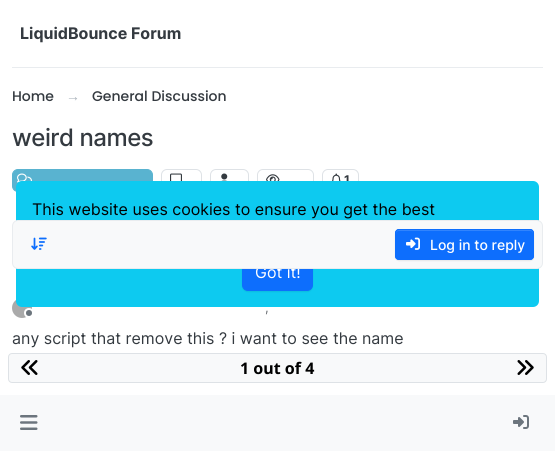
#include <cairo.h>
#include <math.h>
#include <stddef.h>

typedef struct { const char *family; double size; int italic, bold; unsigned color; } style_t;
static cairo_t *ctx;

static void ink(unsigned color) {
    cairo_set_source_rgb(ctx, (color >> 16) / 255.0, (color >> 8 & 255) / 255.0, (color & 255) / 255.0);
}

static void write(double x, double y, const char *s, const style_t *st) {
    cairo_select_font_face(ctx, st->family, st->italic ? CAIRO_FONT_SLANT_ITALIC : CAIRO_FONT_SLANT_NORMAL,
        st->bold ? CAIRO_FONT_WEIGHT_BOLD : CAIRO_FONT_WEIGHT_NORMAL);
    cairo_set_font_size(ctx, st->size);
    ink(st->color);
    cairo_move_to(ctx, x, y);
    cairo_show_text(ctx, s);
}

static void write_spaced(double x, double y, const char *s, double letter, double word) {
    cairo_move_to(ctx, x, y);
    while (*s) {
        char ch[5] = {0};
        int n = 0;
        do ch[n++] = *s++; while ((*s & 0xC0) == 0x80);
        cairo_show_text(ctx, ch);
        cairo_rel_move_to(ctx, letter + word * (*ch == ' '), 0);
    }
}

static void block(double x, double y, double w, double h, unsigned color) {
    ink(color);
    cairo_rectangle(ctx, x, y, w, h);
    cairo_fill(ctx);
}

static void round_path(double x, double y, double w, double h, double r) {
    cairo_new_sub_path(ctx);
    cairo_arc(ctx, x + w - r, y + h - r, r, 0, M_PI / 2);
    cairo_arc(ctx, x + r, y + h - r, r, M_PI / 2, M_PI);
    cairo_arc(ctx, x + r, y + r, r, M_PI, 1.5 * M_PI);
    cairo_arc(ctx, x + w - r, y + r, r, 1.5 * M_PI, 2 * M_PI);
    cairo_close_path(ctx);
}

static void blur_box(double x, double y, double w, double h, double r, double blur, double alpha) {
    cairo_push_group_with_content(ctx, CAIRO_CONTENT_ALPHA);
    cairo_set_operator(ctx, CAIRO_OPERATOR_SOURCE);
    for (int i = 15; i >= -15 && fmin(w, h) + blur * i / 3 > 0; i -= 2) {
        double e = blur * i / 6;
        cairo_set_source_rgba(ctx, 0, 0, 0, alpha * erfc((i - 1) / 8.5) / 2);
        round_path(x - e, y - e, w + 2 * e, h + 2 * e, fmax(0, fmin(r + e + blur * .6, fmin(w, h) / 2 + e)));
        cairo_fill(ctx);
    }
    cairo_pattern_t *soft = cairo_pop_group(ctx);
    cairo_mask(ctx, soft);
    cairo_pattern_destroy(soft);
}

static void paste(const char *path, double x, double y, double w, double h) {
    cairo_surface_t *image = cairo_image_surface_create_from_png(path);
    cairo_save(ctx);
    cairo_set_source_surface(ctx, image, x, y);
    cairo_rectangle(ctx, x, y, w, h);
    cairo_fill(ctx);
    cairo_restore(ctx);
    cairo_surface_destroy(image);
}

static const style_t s1 = {"Inter", 16, 0, 1, 0x343a40};
static const style_t s2 = {"Poppins Medium", 14, 0, 0, 0x343a40};
static const style_t s3 = {"Liberation Sans", 14, 0, 0, 0xadb5bd};
static const style_t s4 = {"Inter", 12, 0, 1, 0x343a40};
static const style_t s5 = {"Inter", 16, 0, 0, 0xffffff};
static const style_t s6 = {"Inter Medium", 14, 0, 0, 0xffffff};
static const style_t s7 = {"Inter", 13, 0, 0, 0x676b70};
static const style_t s8 = {"Inter", 16, 0, 0, 0x343a40};
static const style_t s9 = {"Inter", 16, 0, 0, 0x000000};
static const style_t s10 = {"Noto Sans", 16, 0, 1, 0x000000};

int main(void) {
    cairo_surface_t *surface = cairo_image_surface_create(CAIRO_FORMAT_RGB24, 555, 451);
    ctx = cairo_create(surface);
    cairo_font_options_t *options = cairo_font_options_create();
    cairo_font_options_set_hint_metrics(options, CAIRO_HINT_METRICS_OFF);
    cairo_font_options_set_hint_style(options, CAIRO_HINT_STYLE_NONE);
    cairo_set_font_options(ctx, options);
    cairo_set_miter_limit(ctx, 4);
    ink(0xffffff);
    cairo_paint(ctx);
    block(12, 67, 531, 1, 0xe9ecef);
    write(20, 39, "LiquidBounce Forum", &s1);
    write(12, 101, "Home", &s2);
    write(66, 101, "→", &s3);
    write(92, 101, "General Discussion", &s2);
    cairo_select_font_face(ctx, "Inter Medium", CAIRO_FONT_SLANT_NORMAL, CAIRO_FONT_WEIGHT_NORMAL);
    cairo_set_font_size(ctx, 24);
    write_spaced(12, 146, "weird names", -0.5, 0);
    ink(0x59b3d0);
    round_path(12.5, 169.5, 140, 22, 5.5);
    cairo_fill_preserve(ctx);
    cairo_set_line_width(ctx, 1);
    cairo_stroke(ctx);
    paste("pic1.png", 17, 173, 15, 10);
    round_path(161.5, 169.5, 40, 22, 5.5);
    ink(0xdee2e6);
    cairo_stroke(ctx);
    paste("pic2.png", 170, 173, 12, 8);
    round_path(210.5, 169.5, 38, 22, 5.5);
    cairo_stroke(ctx);
    paste("pic3.png", 221, 173, 7, 8);
    round_path(257.5, 169.5, 56, 22, 5.5);
    cairo_stroke(ctx);
    paste("pic4.png", 266, 174, 14, 7);
    round_path(322.5, 169.5, 36, 22, 5.5);
    cairo_stroke(ctx);
    paste("pic5.png", 332, 173, 9, 8);
    write(344, 184, "1", &s4);
    ink(0xaaaaaa);
    cairo_new_path(ctx);
    cairo_arc(ctx, 22, 308, 10, 0, 2 * M_PI);
    cairo_fill(ctx);
    ink(0x0dcaf0);
    round_path(16, 181, 523, 126, 6);
    cairo_fill(ctx);
    ink(0x000000);
    blur_box(242, 254, 71, 38, 6, 0.5, 0.07);
    ink(0x0d6efd);
    round_path(242.5, 253.5, 70, 37, 5.5);
    cairo_fill_preserve(ctx);
    cairo_stroke(ctx);
    write(255, 278, "Got it!", &s5);
    ink(0xf8f9fa);
    round_path(12.5, 220.5, 530, 48, 5.5);
    cairo_fill_preserve(ctx);
    ink(0xe9ecef);
    cairo_stroke(ctx);
    paste("pic6.png", 31, 237, 16, 13);
    ink(0x000000);
    blur_box(395, 230, 139, 31, 4, 0.5, 0.07);
    ink(0x0d6efd);
    round_path(395, 229, 139, 31, 4);
    cairo_fill(ctx);
    ink(0x3184fd);
    cairo_new_path(ctx);
    cairo_move_to(ctx, 399, 231);
    cairo_line_to(ctx, 530, 231);
    cairo_curve_to(ctx, 532, 231, 533, 232, 533, 234);
    cairo_curve_to(ctx, 533, 232, 533, 230, 531, 230);
    cairo_line_to(ctx, 398, 230);
    cairo_curve_to(ctx, 396, 230, 396, 232, 396, 234);
    cairo_curve_to(ctx, 396, 232, 397, 231, 399, 231);
    cairo_close_path(ctx);
    cairo_fill(ctx);
    round_path(395.5, 229.5, 138, 30, 3.5);
    ink(0x0d6efd);
    cairo_stroke(ctx);
    paste("pic7.png", 406, 237, 14, 13);
    write(430, 250, "Log in to reply", &s6);
    ink(0x6c757d);
    cairo_new_path(ctx);
    cairo_arc(ctx, 29, 313, 4, 0, 2 * M_PI);
    cairo_fill_preserve(ctx);
    ink(0xffffff);
    cairo_set_line_width(ctx, 2);
    cairo_stroke(ctx);
    write(265, 312, ",", &s7);
    write(12, 344, "any script that remove this ? i want to see the name", &s8);
    write(32, 215, "This website uses cookies to ensure you get the best", &s9);
    ink(0xf8f9fa);
    round_path(8.5, 353.5, 538, 29, 3.5);
    cairo_fill_preserve(ctx);
    ink(0xdee2e6);
    cairo_set_line_width(ctx, 1);
    cairo_stroke(ctx);
    paste("pic8.png", 21, 360, 17, 15);
    write(240, 374, "1 out of 4", &s10);
    paste("pic9.png", 517, 360, 17, 15);
    block(0, 395, 555, 56, 0xf8f9fa);
    paste("pic10.png", 20, 415, 18, 15);
    paste("pic11.png", 513, 415, 16, 14);
    cairo_surface_write_to_png(surface, "screenshot.png");
    cairo_font_options_destroy(options);
    cairo_destroy(ctx);
    cairo_surface_destroy(surface);
    return 0;
}
